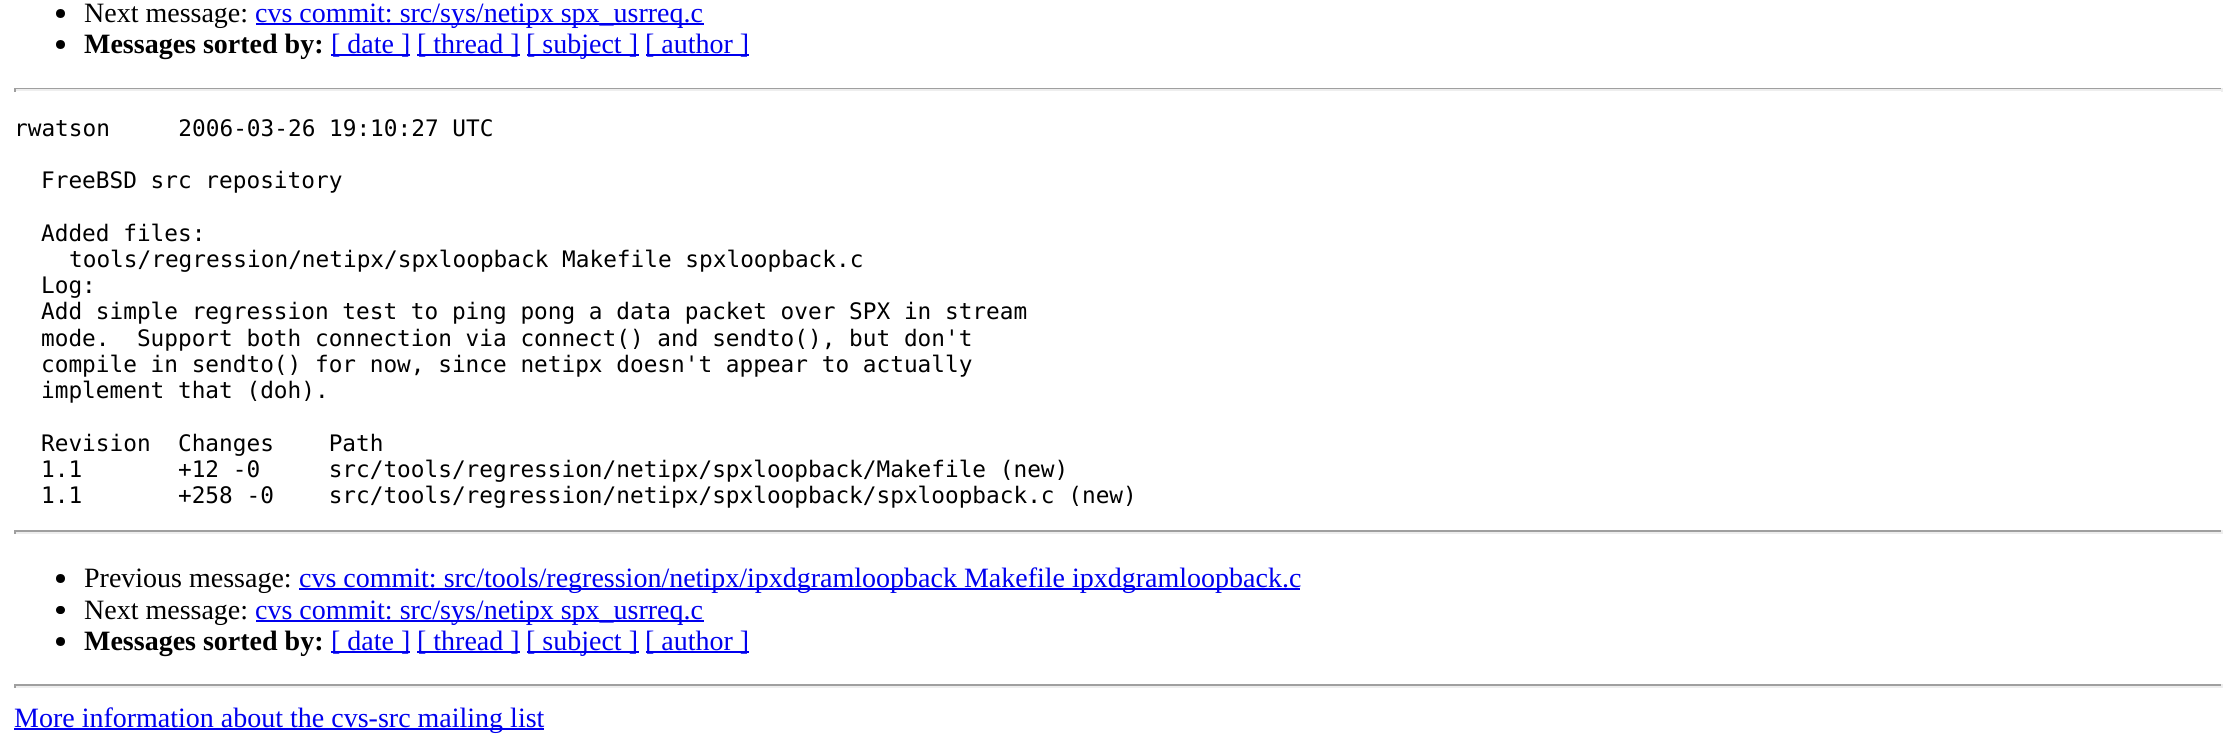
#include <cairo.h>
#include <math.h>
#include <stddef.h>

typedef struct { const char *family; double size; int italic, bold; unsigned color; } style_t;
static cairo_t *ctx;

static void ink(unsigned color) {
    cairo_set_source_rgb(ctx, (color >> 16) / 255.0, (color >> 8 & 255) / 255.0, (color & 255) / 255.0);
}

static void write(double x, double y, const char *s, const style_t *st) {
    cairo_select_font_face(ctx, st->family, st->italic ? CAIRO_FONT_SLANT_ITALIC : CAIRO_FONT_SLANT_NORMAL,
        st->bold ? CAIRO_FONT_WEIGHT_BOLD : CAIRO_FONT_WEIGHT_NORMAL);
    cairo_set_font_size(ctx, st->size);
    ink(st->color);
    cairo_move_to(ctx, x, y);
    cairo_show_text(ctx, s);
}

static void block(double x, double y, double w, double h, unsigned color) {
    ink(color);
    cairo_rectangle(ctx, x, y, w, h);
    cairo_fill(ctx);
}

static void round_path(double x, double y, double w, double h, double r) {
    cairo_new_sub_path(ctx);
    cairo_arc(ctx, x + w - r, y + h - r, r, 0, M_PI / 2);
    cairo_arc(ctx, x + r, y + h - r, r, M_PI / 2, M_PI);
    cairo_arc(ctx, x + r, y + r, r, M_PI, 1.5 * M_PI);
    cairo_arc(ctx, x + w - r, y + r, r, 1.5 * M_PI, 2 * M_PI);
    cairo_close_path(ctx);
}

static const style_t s1 = {"Liberation Serif", 28, 0, 0, 0x000000};
static const style_t s2 = {"Liberation Serif", 28, 0, 0, 0x0000ee};
static const style_t s3 = {"Liberation Serif", 28, 0, 1, 0x000000};
static const style_t s4 = {"DejaVu Sans Mono", 22.75, 0, 0, 0x000000};

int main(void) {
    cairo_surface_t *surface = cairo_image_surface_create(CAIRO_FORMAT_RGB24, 2236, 737);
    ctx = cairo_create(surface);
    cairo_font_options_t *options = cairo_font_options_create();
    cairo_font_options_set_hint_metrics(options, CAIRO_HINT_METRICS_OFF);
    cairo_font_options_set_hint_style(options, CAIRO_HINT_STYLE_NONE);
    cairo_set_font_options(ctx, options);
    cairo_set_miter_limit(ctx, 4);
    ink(0xffffff);
    cairo_paint(ctx);
    ink(0x000000);
    cairo_arc(ctx, 60.5, 13.5, 4.5, 0, 2 * M_PI);
    cairo_fill(ctx);
    write(84, 22, "Next message:", &s1);
    block(256, 23, 448, 2, 0x0000ee);
    write(255, 22, "cvs commit: src/sys/netipx spx_usrreq.c", &s2);
    ink(0x000000);
    cairo_new_path(ctx);
    cairo_arc(ctx, 60.5, 44.5, 4.5, 0, 2 * M_PI);
    cairo_fill(ctx);
    write(84, 53, "Messages sorted by:", &s3);
    block(331, 54, 79, 2, 0x0000ee);
    write(331, 53, "[ date ]", &s2);
    block(417, 54, 103, 2, 0x0000ee);
    write(417, 53, "[ thread ]", &s2);
    block(527, 54, 112, 2, 0x0000ee);
    write(526, 53, "[ subject ]", &s2);
    block(646, 54, 103, 2, 0x0000ee);
    write(645, 53, "[ author ]", &s2);
    block(14, 88, 2209, 1, 0x9f9f9f);
    block(2221, 88, 2, 4, 0xeeeeee);
    block(14, 89, 2209, 2, 0xeeeeee);
    block(14, 88, 2, 4, 0x9f9f9f);
    write(14, 136, "rwatson     2006-03-26 19:10:27 UTC", &s4);
    write(41, 188, "FreeBSD src repository", &s4);
    write(41, 241, "Added files:", &s4);
    write(69, 267, "tools/regression/netipx/spxloopback Makefile spxloopback.c", &s4);
    write(41, 293, "Log:", &s4);
    write(41, 319, "Add simple regression test to ping pong a data packet over SPX in stream", &s4);
    write(41, 346, "mode.  Support both connection via connect() and sendto(), but don't", &s4);
    write(41, 372, "compile in sendto() for now, since netipx doesn't appear to actually", &s4);
    write(41, 398, "implement that (doh).", &s4);
    write(41, 451, "Revision  Changes    Path", &s4);
    write(41, 477, "1.1       +12 -0     src/tools/regression/netipx/spxloopback/Makefile (new)", &s4);
    write(41, 503, "1.1       +258 -0    src/tools/regression/netipx/spxloopback/spxloopback.c (new)", &s4);
    block(14, 530, 2209, 2, 0x9f9f9f);
    block(2221, 530, 2, 4, 0xeeeeee);
    block(14, 532, 2209, 2, 0xeeeeee);
    block(14, 530, 2, 4, 0x9f9f9f);
    ink(0x000000);
    cairo_new_path(ctx);
    cairo_arc(ctx, 60.5, 578.5, 4.5, 0, 2 * M_PI);
    cairo_fill(ctx);
    write(84, 587, "Previous message:", &s1);
    block(299, 588, 1001, 2, 0x0000ee);
    write(299, 587, "cvs commit: src/tools/regression/netipx/ipxdgramloopback Makefile ipxdgramloopback.c", &s2);
    ink(0x000000);
    round_path(56, 606, 9, 8, 4);
    cairo_fill(ctx);
    write(84, 619, "Next message:", &s1);
    block(256, 620, 448, 2, 0x0000ee);
    write(255, 619, "cvs commit: src/sys/netipx spx_usrreq.c", &s2);
    ink(0x000000);
    cairo_new_path(ctx);
    cairo_arc(ctx, 60.5, 641.5, 4.5, 0, 2 * M_PI);
    cairo_fill(ctx);
    write(84, 650, "Messages sorted by:", &s3);
    block(331, 651, 79, 2, 0x0000ee);
    write(331, 650, "[ date ]", &s2);
    block(417, 651, 103, 2, 0x0000ee);
    write(417, 650, "[ thread ]", &s2);
    block(527, 651, 112, 2, 0x0000ee);
    write(526, 650, "[ subject ]", &s2);
    block(646, 651, 103, 2, 0x0000ee);
    write(645, 650, "[ author ]", &s2);
    block(14, 684, 2209, 2, 0x9f9f9f);
    block(2221, 684, 2, 4, 0xeeeeee);
    block(14, 686, 2209, 2, 0xeeeeee);
    block(14, 684, 2, 4, 0x9f9f9f);
    block(14, 728, 530, 2, 0x0000ee);
    write(14, 727, "More information about the cvs-src mailing list", &s2);
    cairo_surface_write_to_png(surface, "screenshot.png");
    cairo_font_options_destroy(options);
    cairo_destroy(ctx);
    cairo_surface_destroy(surface);
    return 0;
}
